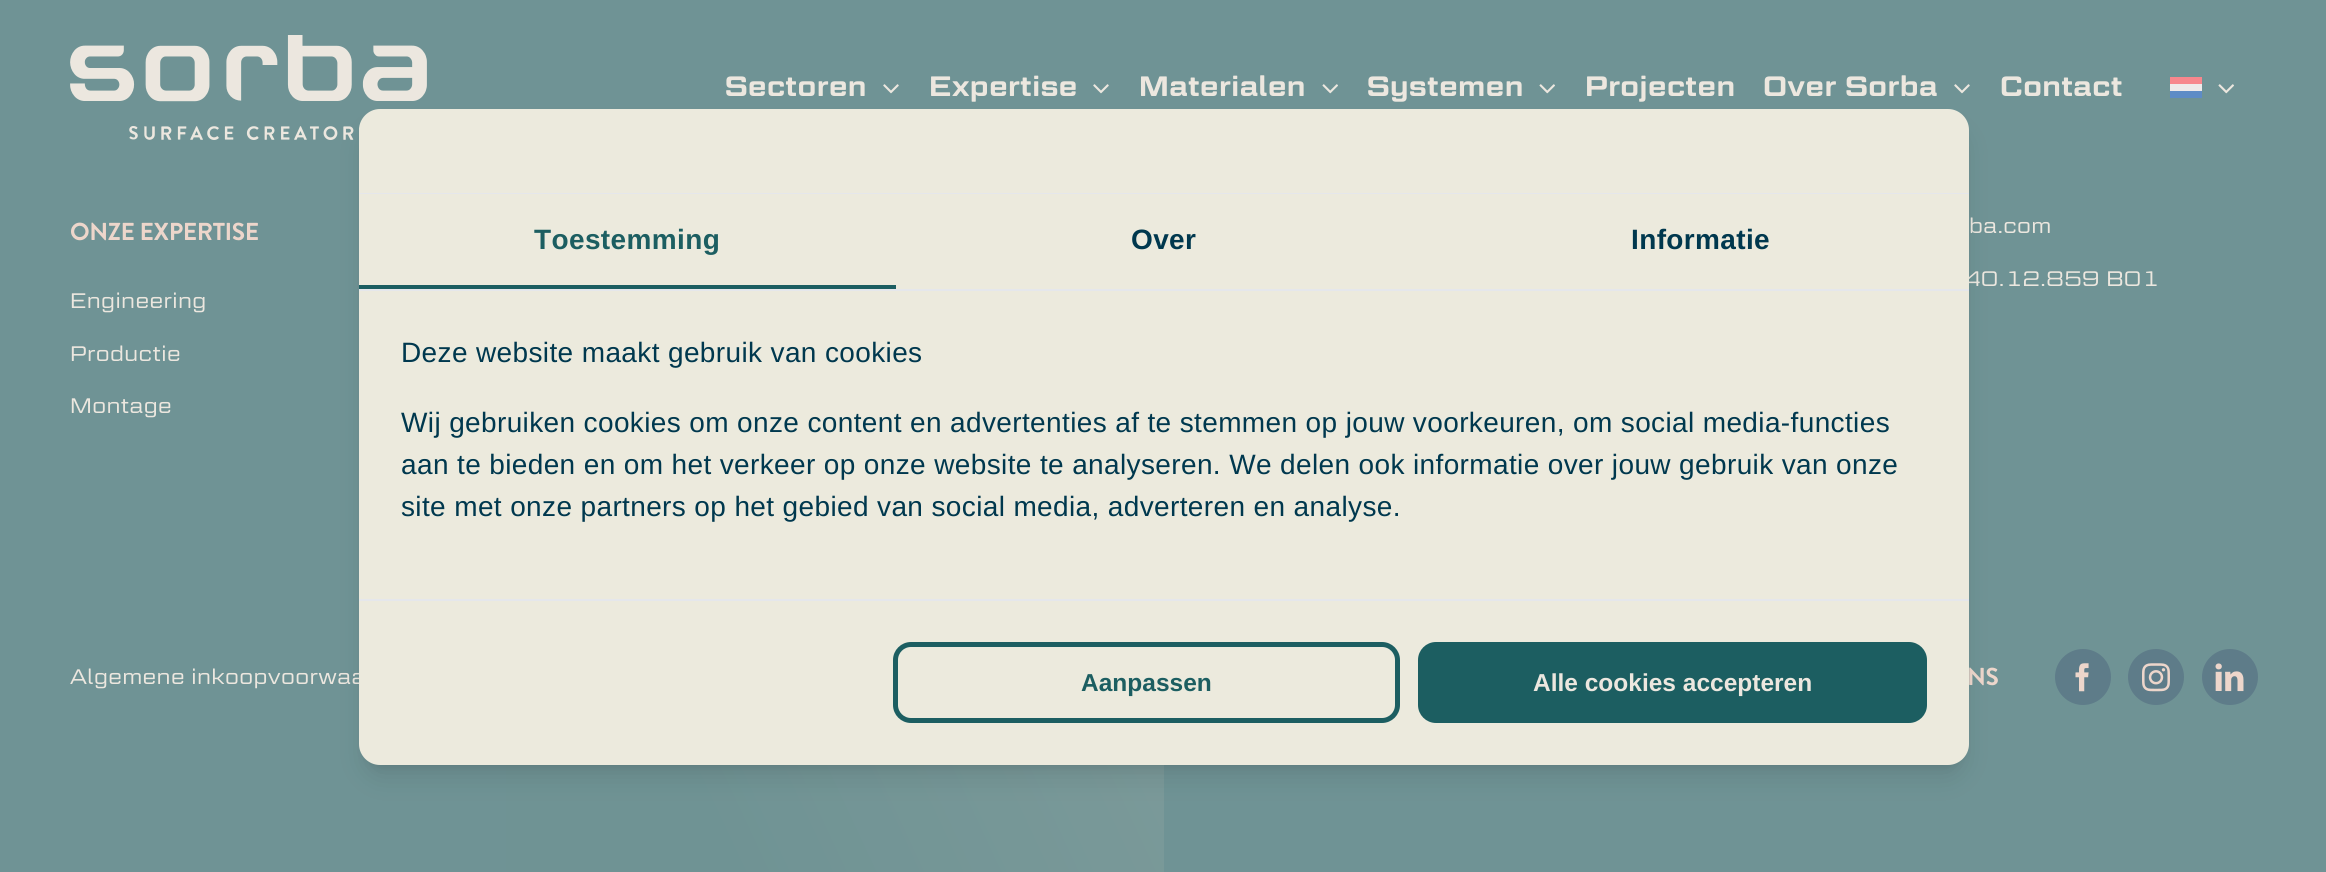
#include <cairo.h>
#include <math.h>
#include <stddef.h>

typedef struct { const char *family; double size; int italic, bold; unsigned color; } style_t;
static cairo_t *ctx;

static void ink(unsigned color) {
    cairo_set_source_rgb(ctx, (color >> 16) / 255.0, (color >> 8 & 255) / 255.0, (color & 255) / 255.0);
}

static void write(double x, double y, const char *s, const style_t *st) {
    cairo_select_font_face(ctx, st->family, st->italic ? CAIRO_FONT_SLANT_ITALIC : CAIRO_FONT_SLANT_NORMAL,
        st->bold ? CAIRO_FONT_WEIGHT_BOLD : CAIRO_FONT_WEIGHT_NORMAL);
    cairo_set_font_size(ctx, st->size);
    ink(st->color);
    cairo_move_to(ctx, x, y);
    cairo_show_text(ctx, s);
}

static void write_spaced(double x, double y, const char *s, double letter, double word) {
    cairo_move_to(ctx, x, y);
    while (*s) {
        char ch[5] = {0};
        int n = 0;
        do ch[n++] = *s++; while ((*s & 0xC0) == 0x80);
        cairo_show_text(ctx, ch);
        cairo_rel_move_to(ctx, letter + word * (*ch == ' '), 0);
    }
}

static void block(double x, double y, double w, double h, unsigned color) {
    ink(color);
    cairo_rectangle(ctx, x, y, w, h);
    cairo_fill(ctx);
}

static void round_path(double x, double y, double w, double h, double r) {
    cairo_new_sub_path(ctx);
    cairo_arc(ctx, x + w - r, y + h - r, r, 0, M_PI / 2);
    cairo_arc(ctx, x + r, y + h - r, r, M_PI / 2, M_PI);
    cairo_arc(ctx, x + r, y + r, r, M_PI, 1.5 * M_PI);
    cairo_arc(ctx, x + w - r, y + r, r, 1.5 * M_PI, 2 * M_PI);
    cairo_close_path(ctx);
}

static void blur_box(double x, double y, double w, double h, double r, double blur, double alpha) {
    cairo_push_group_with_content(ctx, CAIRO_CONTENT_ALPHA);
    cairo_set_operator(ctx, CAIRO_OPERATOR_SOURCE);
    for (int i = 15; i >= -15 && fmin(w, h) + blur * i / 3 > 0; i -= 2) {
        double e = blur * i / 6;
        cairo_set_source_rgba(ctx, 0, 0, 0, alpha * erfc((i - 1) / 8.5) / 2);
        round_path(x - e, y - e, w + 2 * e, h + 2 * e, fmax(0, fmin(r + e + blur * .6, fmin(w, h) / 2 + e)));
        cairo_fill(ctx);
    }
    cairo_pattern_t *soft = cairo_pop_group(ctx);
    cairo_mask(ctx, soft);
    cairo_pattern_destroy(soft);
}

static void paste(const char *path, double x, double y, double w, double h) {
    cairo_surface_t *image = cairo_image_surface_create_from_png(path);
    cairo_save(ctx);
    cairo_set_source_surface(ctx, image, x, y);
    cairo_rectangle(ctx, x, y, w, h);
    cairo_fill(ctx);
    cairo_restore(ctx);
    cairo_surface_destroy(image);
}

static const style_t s1 = {"Liberation Sans", 24.5, 0, 1, 0x1c5e61};
static const style_t s2 = {"Liberation Sans", 24.5, 0, 1, 0xece7df};

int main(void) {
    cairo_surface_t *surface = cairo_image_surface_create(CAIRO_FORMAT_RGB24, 2326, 872);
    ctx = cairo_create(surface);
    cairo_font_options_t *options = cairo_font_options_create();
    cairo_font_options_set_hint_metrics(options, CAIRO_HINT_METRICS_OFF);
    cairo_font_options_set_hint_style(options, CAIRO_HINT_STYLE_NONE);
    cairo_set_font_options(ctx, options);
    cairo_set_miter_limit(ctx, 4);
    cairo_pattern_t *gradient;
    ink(0x6f9395);
    cairo_paint(ctx);
    paste("pic1.png", 70, 35, 357, 105);
    cairo_select_font_face(ctx, "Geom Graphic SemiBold", CAIRO_FONT_SLANT_NORMAL, CAIRO_FONT_WEIGHT_NORMAL);
    cairo_set_font_size(ctx, 28);
    ink(0xece7df);
    write_spaced(725, 96, "Sectoren", 0.5, 0);
    paste("pic2.png", 883, 84, 16, 10);
    write_spaced(929, 96, "Expertise", 0.5, 0);
    paste("pic2.png", 1093, 84, 16, 10);
    write_spaced(1139, 96, "Materialen", 0.5, 0);
    paste("pic3.png", 1322, 84, 16, 10);
    write_spaced(1367, 96, "Systemen", 0.5, 0);
    paste("pic3.png", 1539, 84, 16, 10);
    write_spaced(1585, 96, "Projecten", 0.5, 0);
    write_spaced(1763, 96, "Over Sorba", 0.5, 0);
    paste("pic2.png", 1954, 84, 16, 10);
    write_spaced(2000, 96, "Contact", 0.5, 0);
    block(2170, 84, 32, 7, 0xeeeaea);
    block(2170, 91, 32, 7, 0x5e8cc6);
    block(2170, 77, 32, 7, 0xf7878d);
    paste("pic3.png", 2218, 84, 16, 10);
    gradient = cairo_pattern_create_linear(1324, -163, -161, 529);
    cairo_pattern_add_color_stop_rgba(gradient, 0, 0.533, 0.631, 0.624, 1);
    cairo_pattern_add_color_stop_rgba(gradient, 0.6, 0.435, 0.576, 0.58, 1);
    cairo_set_source(ctx, gradient);
    cairo_pattern_destroy(gradient);
    cairo_rectangle(ctx, 506, 175, 658, 697);
    cairo_fill(ctx);
    cairo_select_font_face(ctx, "Brandon Grotesque", CAIRO_FONT_SLANT_NORMAL, CAIRO_FONT_WEIGHT_BOLD);
    cairo_set_font_size(ctx, 24.5);
    ink(0xedd6cb);
    write_spaced(70, 240, "ONZE EXPERTISE", -0.4, 0);
    cairo_select_font_face(ctx, "Geom Graphic Light", CAIRO_FONT_SLANT_NORMAL, CAIRO_FONT_WEIGHT_NORMAL);
    cairo_set_font_size(ctx, 21);
    ink(0xece7df);
    write_spaced(70, 308, "Engineering", 0.37, 0);
    write_spaced(70, 361, "Productie", 0.37, 0);
    write_spaced(70, 413, "Montage", 0.37, 0);
    write_spaced(1969, 233, "ba.com", 0.37, 0);
    write_spaced(1963, 286, "40.12.859 B01", 0.37, 0);
    write_spaced(70, 684, "Algemene inkoopvoorwaa", 0.37, 0);
    cairo_select_font_face(ctx, "Brandon Grotesque", CAIRO_FONT_SLANT_NORMAL, CAIRO_FONT_WEIGHT_BOLD);
    cairo_set_font_size(ctx, 24.5);
    ink(0xedd6cb);
    write_spaced(1967, 685, "NS", -0.4, 0);
    ink(0x5e7c89);
    cairo_new_path(ctx);
    cairo_arc(ctx, 2083, 677, 28, 0, 2 * M_PI);
    cairo_fill(ctx);
    paste("pic4.png", 2075, 663, 14, 29);
    cairo_arc(ctx, 2156, 677, 28, 0, 2 * M_PI);
    cairo_fill(ctx);
    paste("pic5.png", 2142, 663, 28, 29);
    cairo_arc(ctx, 2230, 677, 28, 0, 2 * M_PI);
    cairo_fill(ctx);
    paste("pic6.png", 2215, 663, 29, 29);
    ink(0x000000);
    blur_box(366, 123, 1596, 642, 14, 5, 0.1);
    blur_box(364, 131, 1600, 646, 16, 13, 0.1);
    ink(0xeceadd);
    cairo_new_path(ctx);
    cairo_move_to(ctx, 380, 109);
    cairo_line_to(ctx, 1948, 109);
    cairo_curve_to(ctx, 1959.5, 109, 1969, 118.5, 1969, 130);
    cairo_line_to(ctx, 1969, 194);
    cairo_line_to(ctx, 359, 194);
    cairo_line_to(ctx, 359, 130);
    cairo_curve_to(ctx, 359, 118.5, 368.5, 109, 380, 109);
    cairo_close_path(ctx);
    cairo_fill(ctx);
    block(359, 193, 1610, 1, 0xe5e7eb);
    block(359, 194, 1610, 95, 0xeceadd);
    block(359, 289, 1610, 2, 0xe5e7eb);
    block(359, 285, 537, 4, 0x1c5e61);
    cairo_select_font_face(ctx, "Liberation Sans", CAIRO_FONT_SLANT_NORMAL, CAIRO_FONT_WEIGHT_BOLD);
    cairo_set_font_size(ctx, 28);
    write_spaced(534, 249, "Toestemming", 0.37, 0);
    ink(0x00384e);
    write_spaced(1131, 249, "Over", 0.37, 0);
    write_spaced(1631, 249, "Informatie", 0.37, 0);
    block(359, 291, 1610, 308, 0xeceadd);
    cairo_select_font_face(ctx, "Liberation Sans", CAIRO_FONT_SLANT_NORMAL, CAIRO_FONT_WEIGHT_NORMAL);
    ink(0x00384e);
    write_spaced(401, 362, "Deze website maakt gebruik van cookies", 0.37, 0);
    write_spaced(401, 432, "Wij gebruiken cookies om onze content en advertenties af te stemmen op jouw voorkeuren, om social media-functies", 0.37, 0);
    write_spaced(401, 474, "aan te bieden en om het verkeer op onze website te analyseren. We delen ook informatie over jouw gebruik van onze", 0.37, 0);
    write_spaced(401, 516, "site met onze partners op het gebied van social media, adverteren en analyse.", 0.37, 0);
    ink(0xeceadd);
    cairo_new_path(ctx);
    cairo_move_to(ctx, 359, 599);
    cairo_line_to(ctx, 1969, 599);
    cairo_line_to(ctx, 1969, 744);
    cairo_curve_to(ctx, 1969, 755.5, 1959.5, 765, 1948, 765);
    cairo_line_to(ctx, 380, 765);
    cairo_curve_to(ctx, 368.5, 765, 359, 755.5, 359, 744);
    cairo_close_path(ctx);
    cairo_fill(ctx);
    block(359, 599, 1610, 2, 0xe5e7eb);
    round_path(895.5, 644.5, 502, 76, 15.5);
    ink(0x1c5e61);
    cairo_set_line_width(ctx, 5);
    cairo_stroke(ctx);
    write(1081, 691, "Aanpassen", &s1);
    round_path(1420.5, 644.5, 504, 76, 15.5);
    cairo_fill_preserve(ctx);
    cairo_stroke(ctx);
    write(1533, 691, "Alle cookies accepteren", &s2);
    cairo_surface_write_to_png(surface, "screenshot.png");
    cairo_font_options_destroy(options);
    cairo_destroy(ctx);
    cairo_surface_destroy(surface);
    return 0;
}
